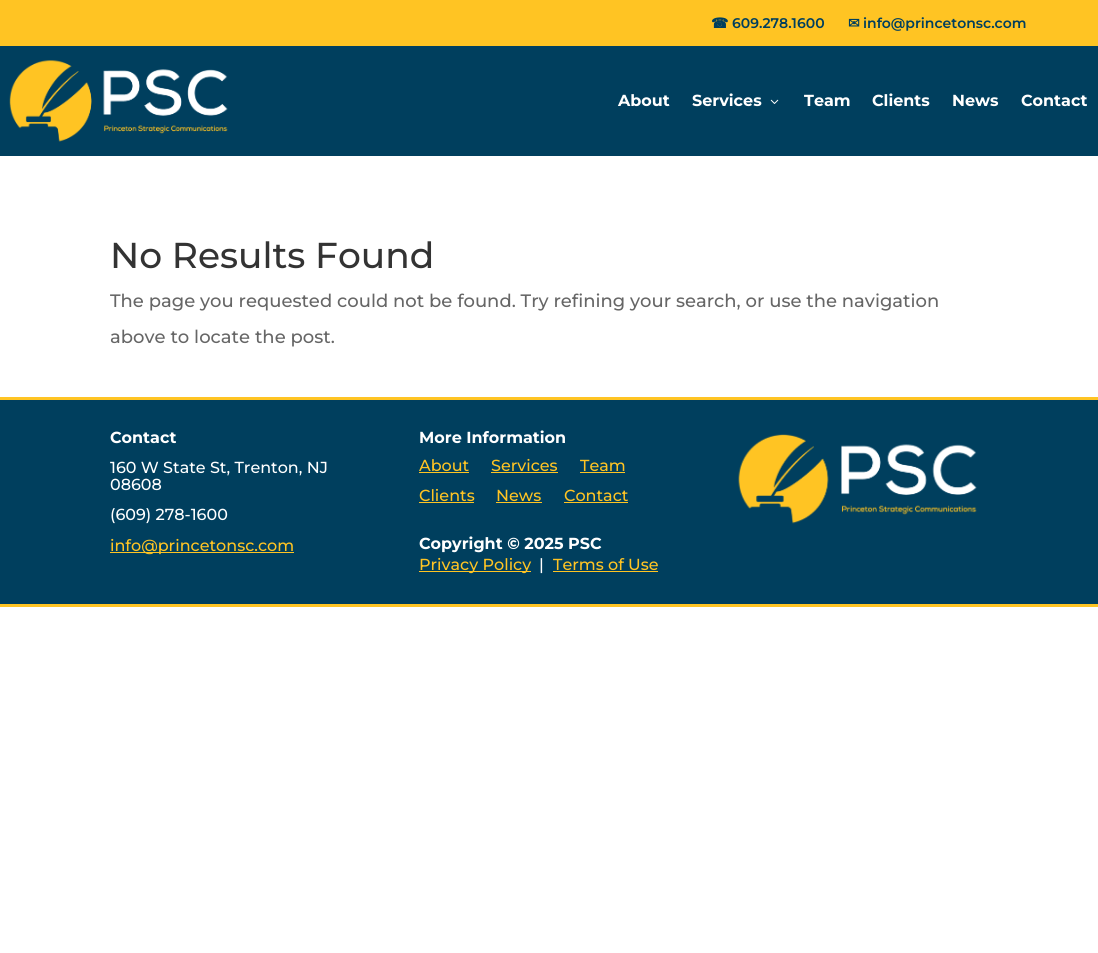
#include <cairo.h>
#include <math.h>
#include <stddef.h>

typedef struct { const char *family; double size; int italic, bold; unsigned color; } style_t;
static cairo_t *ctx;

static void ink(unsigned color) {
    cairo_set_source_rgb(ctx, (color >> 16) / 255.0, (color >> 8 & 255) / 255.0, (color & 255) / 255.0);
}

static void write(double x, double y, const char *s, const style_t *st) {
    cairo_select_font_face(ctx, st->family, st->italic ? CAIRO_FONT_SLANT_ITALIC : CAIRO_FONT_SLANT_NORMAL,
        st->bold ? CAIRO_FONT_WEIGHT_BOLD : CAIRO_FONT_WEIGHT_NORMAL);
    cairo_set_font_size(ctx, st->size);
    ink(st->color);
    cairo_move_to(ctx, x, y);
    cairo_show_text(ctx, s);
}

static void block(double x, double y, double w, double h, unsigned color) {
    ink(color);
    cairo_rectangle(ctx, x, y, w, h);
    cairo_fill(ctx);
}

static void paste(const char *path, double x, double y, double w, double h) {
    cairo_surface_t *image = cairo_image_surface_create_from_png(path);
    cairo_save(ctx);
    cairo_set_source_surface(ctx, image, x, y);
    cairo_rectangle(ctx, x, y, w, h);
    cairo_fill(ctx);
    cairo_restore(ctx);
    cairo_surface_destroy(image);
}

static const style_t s1 = {"DejaVu Sans", 14, 0, 1, 0x003f5e};
static const style_t s2 = {"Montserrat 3 Thin", 14, 0, 0, 0x003f5e};
static const style_t s3 = {"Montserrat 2 Thin", 16, 0, 0, 0xffffff};
static const style_t s4 = {"Montserrat Thin", 36, 0, 0, 0x333333};
static const style_t s5 = {"Montserrat Thin", 18, 0, 0, 0x666666};
static const style_t s6 = {"Montserrat Thin", 16, 0, 0, 0xffffff};
static const style_t s7 = {"Montserrat Thin", 16, 0, 0, 0xffc423};

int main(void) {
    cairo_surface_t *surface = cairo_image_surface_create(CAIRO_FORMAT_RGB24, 1098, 953);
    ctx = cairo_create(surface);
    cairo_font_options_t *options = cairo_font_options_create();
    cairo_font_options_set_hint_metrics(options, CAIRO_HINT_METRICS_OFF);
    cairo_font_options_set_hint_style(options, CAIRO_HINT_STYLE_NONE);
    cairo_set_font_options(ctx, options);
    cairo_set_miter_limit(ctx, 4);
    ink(0xffffff);
    cairo_paint(ctx);
    block(0, 0, 1098, 46, 0xffc423);
    write(711, 28, "☎", &s1);
    write(732, 28, "609.278.1600", &s2);
    write(848, 28, "✉", &s1);
    write(863, 28, "info@princetonsc.com", &s2);
    block(0, 46, 1098, 110, 0x003f5e);
    paste("pic1.png", 9, 60, 219, 82);
    write(618, 106, "About", &s3);
    write(692, 106, "Services", &s3);
    paste("pic2.png", 770, 99, 9, 5);
    write(804, 106, "Team", &s3);
    write(872, 106, "Clients", &s3);
    write(952, 106, "News", &s3);
    write(1021, 106, "Contact", &s3);
    write(110, 268, "No Results Found", &s4);
    write(110, 307, "The page you requested could not be found. Try refining your search, or use the navigation", &s5);
    write(110, 343, "above to locate the post.", &s5);
    block(0, 400, 1098, 204, 0x003f5e);
    block(0, 397, 1098, 3, 0xffc423);
    block(0, 604, 1098, 3, 0xffc423);
    write(110, 443, "Contact", &s3);
    write(110, 473, "160 W State St, Trenton, NJ", &s6);
    write(110, 490, "08608", &s6);
    write(110, 520, "(609) 278-1600", &s6);
    block(110, 552, 184, 1, 0xffc423);
    write(110, 551, "info@princetonsc.com", &s7);
    write(419, 443, "More Information", &s3);
    write(419, 471, "About", &s7);
    block(419, 472, 50, 1, 0xffc423);
    write(491, 471, "Services", &s7);
    block(491, 472, 67, 1, 0xffc423);
    write(580, 471, "Team", &s7);
    block(580, 472, 45, 1, 0xffc423);
    write(419, 501, "Clients", &s7);
    block(419, 502, 55, 1, 0xffc423);
    write(496, 501, "News", &s7);
    block(496, 502, 46, 1, 0xffc423);
    write(564, 501, "Contact", &s7);
    block(564, 502, 64, 1, 0xffc423);
    write(419, 549, "Copyright © 2025 PSC", &s3);
    block(419, 571, 112, 1, 0xffc423);
    write(419, 570, "Privacy Policy", &s7);
    write(539, 570, "|", &s6);
    write(553, 570, "Terms of Use", &s7);
    block(553, 571, 105, 1, 0xffc423);
    paste("pic3.png", 738, 434, 239, 90);
    cairo_surface_write_to_png(surface, "screenshot.png");
    cairo_font_options_destroy(options);
    cairo_destroy(ctx);
    cairo_surface_destroy(surface);
    return 0;
}
